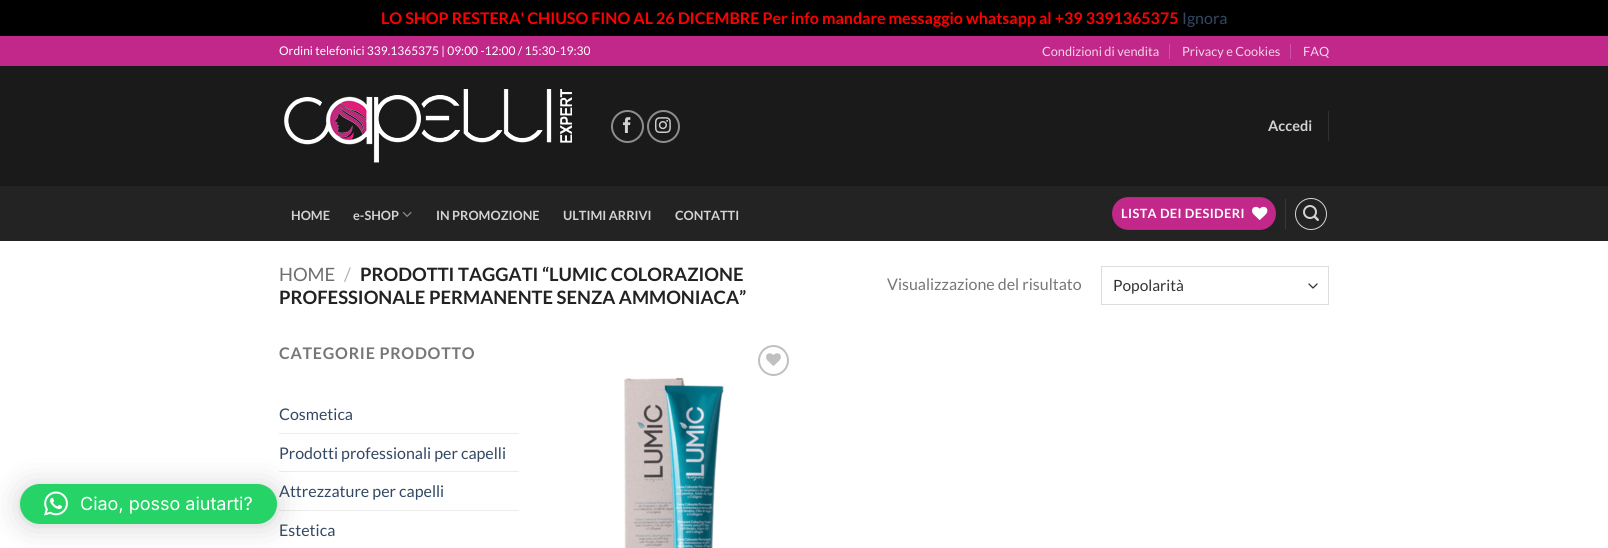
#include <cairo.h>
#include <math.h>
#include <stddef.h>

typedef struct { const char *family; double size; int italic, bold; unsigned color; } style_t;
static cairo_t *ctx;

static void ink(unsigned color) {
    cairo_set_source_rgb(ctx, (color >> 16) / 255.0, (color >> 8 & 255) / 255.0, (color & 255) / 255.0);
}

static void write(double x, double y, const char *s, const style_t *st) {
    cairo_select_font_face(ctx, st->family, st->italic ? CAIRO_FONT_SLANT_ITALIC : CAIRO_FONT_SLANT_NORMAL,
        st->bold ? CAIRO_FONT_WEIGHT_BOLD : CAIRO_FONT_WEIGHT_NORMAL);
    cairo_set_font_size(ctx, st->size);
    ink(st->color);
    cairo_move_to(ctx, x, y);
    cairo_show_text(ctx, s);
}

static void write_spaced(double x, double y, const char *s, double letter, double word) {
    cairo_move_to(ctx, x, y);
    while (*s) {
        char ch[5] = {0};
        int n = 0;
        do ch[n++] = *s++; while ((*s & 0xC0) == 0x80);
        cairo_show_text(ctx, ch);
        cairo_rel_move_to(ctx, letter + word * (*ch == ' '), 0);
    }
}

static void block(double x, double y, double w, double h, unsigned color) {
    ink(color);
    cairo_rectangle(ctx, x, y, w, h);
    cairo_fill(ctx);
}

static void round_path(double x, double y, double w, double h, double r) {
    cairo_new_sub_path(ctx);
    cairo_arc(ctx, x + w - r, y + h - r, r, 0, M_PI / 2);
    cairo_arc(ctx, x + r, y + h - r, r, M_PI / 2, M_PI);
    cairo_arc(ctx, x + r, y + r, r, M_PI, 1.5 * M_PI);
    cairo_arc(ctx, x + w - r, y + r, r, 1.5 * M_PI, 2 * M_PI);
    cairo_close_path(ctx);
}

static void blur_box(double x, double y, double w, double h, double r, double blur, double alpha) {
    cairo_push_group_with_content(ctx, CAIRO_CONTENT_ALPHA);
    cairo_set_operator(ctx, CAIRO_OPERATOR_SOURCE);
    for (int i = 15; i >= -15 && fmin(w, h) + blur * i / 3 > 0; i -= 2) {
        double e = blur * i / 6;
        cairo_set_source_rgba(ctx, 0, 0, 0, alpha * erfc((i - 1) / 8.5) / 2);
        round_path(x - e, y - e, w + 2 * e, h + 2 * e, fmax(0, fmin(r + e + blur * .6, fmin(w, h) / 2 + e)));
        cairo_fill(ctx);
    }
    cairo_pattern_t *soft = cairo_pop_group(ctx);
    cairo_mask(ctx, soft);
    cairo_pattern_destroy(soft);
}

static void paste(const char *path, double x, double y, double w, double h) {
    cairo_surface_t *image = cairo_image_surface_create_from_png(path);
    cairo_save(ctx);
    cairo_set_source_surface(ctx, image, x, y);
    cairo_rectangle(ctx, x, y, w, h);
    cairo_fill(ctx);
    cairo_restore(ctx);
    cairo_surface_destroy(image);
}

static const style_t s1 = {"Lato", 16, 0, 1, 0xff0000};
static const style_t s2 = {"Lato", 16, 0, 0, 0x334862};
static const style_t s3 = {"Inter", 18, 0, 0, 0xffffff};
static const style_t s4 = {"Lato", 12, 0, 0, 0xffffff};
static const style_t s5 = {"Lato", 12.75, 0, 0, 0xf3d4e8};
static const style_t s6 = {"Lato", 14.5, 0, 1, 0xd3d3d3};
static const style_t s7 = {"Lato", 12.75, 0, 1, 0xd3d3d3};
static const style_t s8 = {"Lato", 18.4, 0, 0, 0x6e6e6e};
static const style_t s9 = {"Lato", 18.4, 0, 0, 0xb2b2b2};
static const style_t s10 = {"Lato", 18.4, 0, 1, 0x222222};
static const style_t s11 = {"Lato", 16, 0, 0, 0x777777};
static const style_t s12 = {"Lato", 15.5, 0, 0, 0x333333};

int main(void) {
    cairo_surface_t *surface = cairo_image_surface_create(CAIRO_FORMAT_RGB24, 1608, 548);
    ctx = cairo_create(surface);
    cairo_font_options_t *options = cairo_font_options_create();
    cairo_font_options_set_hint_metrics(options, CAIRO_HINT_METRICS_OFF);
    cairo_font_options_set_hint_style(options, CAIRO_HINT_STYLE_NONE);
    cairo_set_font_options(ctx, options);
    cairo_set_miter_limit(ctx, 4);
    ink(0x000000);
    cairo_paint(ctx);
    write(381, 24, "LO SHOP RESTERA' CHIUSO FINO AL 26 DICEMBRE Per info mandare messaggio whatsapp al +39 3391365375", &s1);
    write(1182, 24, "Ignora", &s2);
    block(0, 241, 1608, 307, 0xffffff);
    block(279, 471, 240, 1, 0xececec);
    block(279, 510, 240, 1, 0xececec);
    ink(0x000000);
    blur_box(20, 486, 257, 40, 20, 16, 0.16);
    blur_box(20, 485, 257, 40, 20, 3, 0.06);
    ink(0x25d366);
    round_path(20, 484, 257, 40, 20);
    cairo_fill(ctx);
    paste("pic1.png", 44, 491, 24, 25);
    write(80, 510, "Ciao, posso aiutarti?", &s3);
    block(0, 36, 1608, 30, 0xc2288a);
    write(279, 55, "Ordini telefonici 339.1365375 | 09:00 -12:00 / 15:30-19:30", &s4);
    write(1042, 56, "Condizioni di vendita", &s5);
    block(1169, 44, 1, 15, 0xce53a1);
    write(1182, 56, "Privacy e Cookies", &s5);
    block(1290, 44, 1, 15, 0xce53a1);
    write(1303, 56, "FAQ", &s5);
    block(0, 66, 1608, 120, 0x1a1a1a);
    paste("pic2.png", 284, 89, 288, 74);
    cairo_arc(ctx, 627.5, 126.5, 15.5, 0, 2 * M_PI);
    ink(0x8d8d8d);
    cairo_stroke(ctx);
    paste("pic3.png", 622, 117, 9, 16);
    cairo_arc(ctx, 663.5, 126.5, 15.5, 0, 2 * M_PI);
    cairo_stroke(ctx);
    paste("pic4.png", 655, 117, 16, 16);
    write(1268, 131, "Accedi", &s6);
    block(1328, 111, 1, 30, 0x313131);
    block(0, 186, 1608, 55, 0x232323);
    write(291, 220, "HOME", &s7);
    write(353, 220, "e-SHOP", &s7);
    paste("pic5.png", 402, 211, 10, 6);
    write(436, 220, "IN PROMOZIONE", &s7);
    write(563, 220, "ULTIMI ARRIVI", &s7);
    write(675, 220, "CONTATTI", &s7);
    ink(0xc2288a);
    round_path(1112, 197, 164, 33, 16.5);
    cairo_fill(ctx);
    cairo_rectangle(ctx, 1112.5, 197.5, 163, 32);
    cairo_set_source_rgba(ctx, 0, 0, 0, 0.05);
    cairo_set_line_width(ctx, 1);
    cairo_stroke(ctx);
    ink(0xffffff);
    write_spaced(1121, 218, "LISTA DEI DESIDERI", 0.4, 0);
    paste("pic6.png", 1252, 206, 16, 14);
    block(1285, 199, 1, 30, 0x393939);
    cairo_arc(ctx, 1311, 214, 15.5, 0, 2 * M_PI);
    ink(0xd3d3d3);
    cairo_stroke(ctx);
    paste("pic7.png", 1303, 205, 16, 16);
    write(279, 281, "HOME", &s8);
    write(344, 281, "/", &s9);
    write(360, 281, "PRODOTTI TAGGATI “LUMIC COLORAZIONE", &s10);
    write(279, 304, "PROFESSIONALE PERMANENTE SENZA AMMONIACA”", &s10);
    write(887, 290, "Visualizzazione del risultato", &s11);
    cairo_new_path(ctx);
    cairo_move_to(ctx, 1309, 284);
    cairo_line_to(ctx, 1313, 288);
    cairo_line_to(ctx, 1317, 284);
    ink(0x333333);
    cairo_set_line_width(ctx, 1.3);
    cairo_set_line_cap(ctx, CAIRO_LINE_CAP_ROUND);
    cairo_set_line_join(ctx, CAIRO_LINE_JOIN_ROUND);
    cairo_stroke(ctx);
    cairo_rectangle(ctx, 1101.5, 266.5, 227, 38);
    ink(0xdddddd);
    cairo_set_line_width(ctx, 1);
    cairo_set_line_cap(ctx, CAIRO_LINE_CAP_BUTT);
    cairo_set_line_join(ctx, CAIRO_LINE_JOIN_MITER);
    cairo_stroke(ctx);
    write(1113, 291, "Popolarità", &s12);
    cairo_select_font_face(ctx, "Lato", CAIRO_FONT_SLANT_NORMAL, CAIRO_FONT_WEIGHT_BOLD);
    cairo_set_font_size(ctx, 16);
    ink(0x777777);
    write_spaced(279, 359, "CATEGORIE PRODOTTO", 0.75, 0);
    write(279, 420, "Cosmetica", &s2);
    block(279, 433, 240, 1, 0xececec);
    write(279, 459, "Prodotti professionali per capelli", &s2);
    write(279, 497, "Attrezzature per capelli", &s2);
    write(279, 536, "Estetica", &s2);
    cairo_new_path(ctx);
    cairo_arc(ctx, 773.5, 360.5, 14.5, 0, 2 * M_PI);
    ink(0xc0c0c0);
    cairo_set_line_width(ctx, 2);
    cairo_stroke(ctx);
    paste("pic8.png", 766, 353, 15, 13);
    paste("pic9.png", 624, 377, 100, 171);
    cairo_surface_write_to_png(surface, "screenshot.png");
    cairo_font_options_destroy(options);
    cairo_destroy(ctx);
    cairo_surface_destroy(surface);
    return 0;
}
